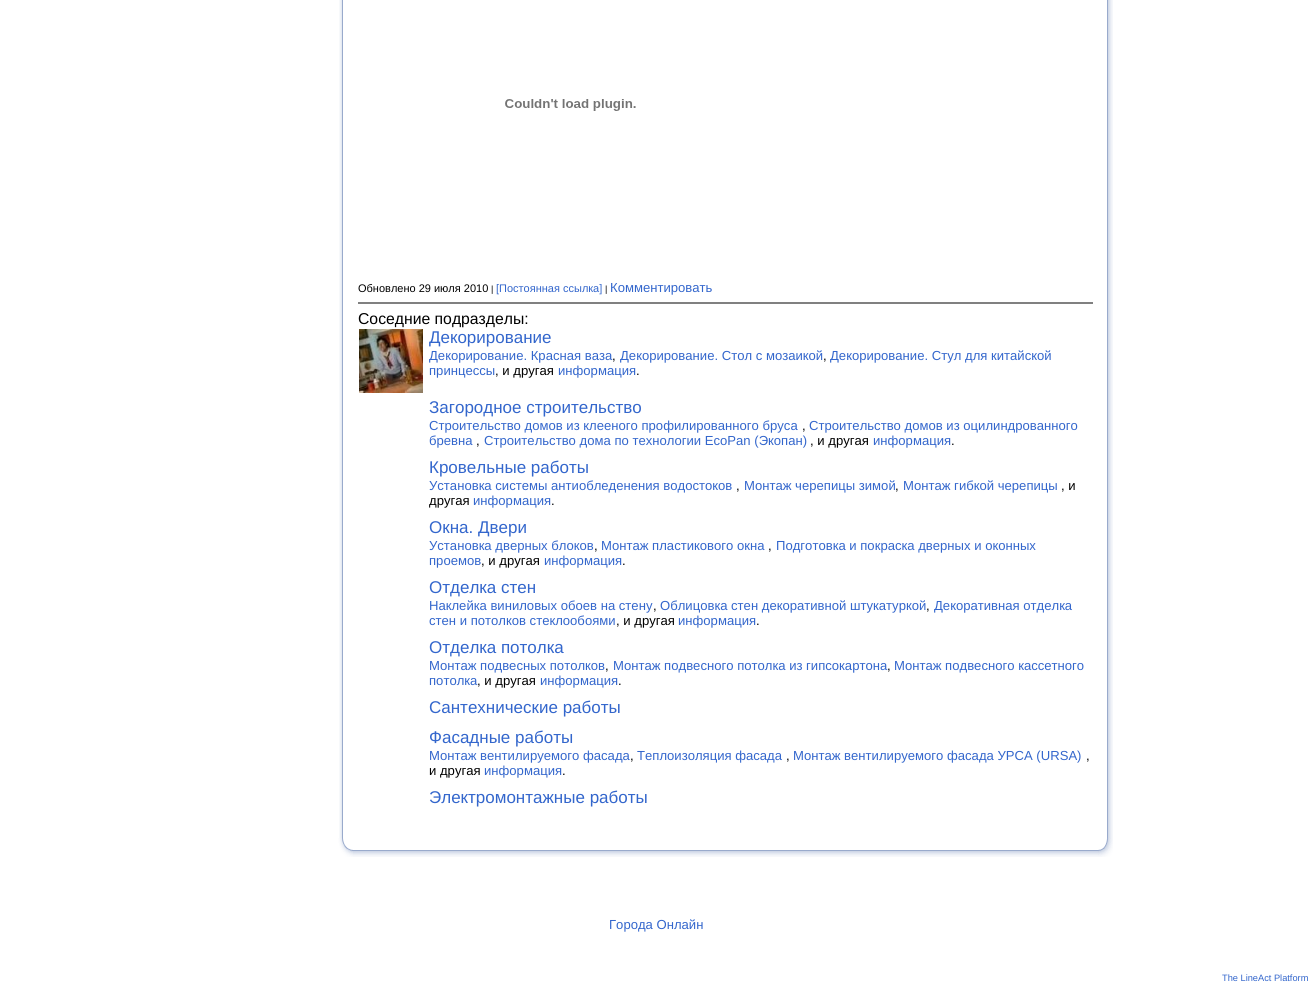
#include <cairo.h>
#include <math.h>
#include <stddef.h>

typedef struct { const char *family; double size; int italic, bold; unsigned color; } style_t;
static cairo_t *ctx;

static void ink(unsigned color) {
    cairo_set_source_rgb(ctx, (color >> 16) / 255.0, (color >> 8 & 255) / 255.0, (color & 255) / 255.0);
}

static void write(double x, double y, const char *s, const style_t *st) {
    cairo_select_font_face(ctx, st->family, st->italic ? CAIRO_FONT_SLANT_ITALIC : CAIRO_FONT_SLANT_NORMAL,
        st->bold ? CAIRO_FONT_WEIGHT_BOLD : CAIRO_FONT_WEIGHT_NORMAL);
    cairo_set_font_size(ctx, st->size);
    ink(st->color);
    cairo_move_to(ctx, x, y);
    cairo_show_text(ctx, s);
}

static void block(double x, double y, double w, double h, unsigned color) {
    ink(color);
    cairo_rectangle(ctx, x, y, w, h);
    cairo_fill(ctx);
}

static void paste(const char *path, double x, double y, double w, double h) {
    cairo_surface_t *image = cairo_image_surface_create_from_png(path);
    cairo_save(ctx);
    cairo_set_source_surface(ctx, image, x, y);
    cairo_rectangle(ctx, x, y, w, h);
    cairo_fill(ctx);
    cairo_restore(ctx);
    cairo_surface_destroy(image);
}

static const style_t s1 = {"Liberation Sans", 11, 0, 0, 0x000000};
static const style_t s2 = {"Liberation Sans", 9, 0, 0, 0x000000};
static const style_t s3 = {"Liberation Sans", 11, 0, 0, 0x3366cc};
static const style_t s4 = {"Liberation Sans", 13.1, 0, 0, 0x3366cc};
static const style_t s5 = {"Liberation Sans", 15.75, 0, 0, 0x000000};
static const style_t s6 = {"Liberation Sans", 17, 0, 0, 0x3366cc};
static const style_t s7 = {"Liberation Sans", 13.1, 0, 0, 0x000000};
static const style_t s8 = {"Liberation Sans", 9.25, 0, 0, 0x3366cc};

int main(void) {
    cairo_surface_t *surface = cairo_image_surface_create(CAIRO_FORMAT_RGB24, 1313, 987);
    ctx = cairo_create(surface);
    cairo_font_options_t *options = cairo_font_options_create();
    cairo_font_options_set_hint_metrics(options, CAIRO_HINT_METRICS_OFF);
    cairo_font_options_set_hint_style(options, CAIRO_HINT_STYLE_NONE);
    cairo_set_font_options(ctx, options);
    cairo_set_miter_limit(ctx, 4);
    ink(0xffffff);
    cairo_paint(ctx);
    paste("pic1.png", 339, 0, 4, 838);
    paste("pic2.png", 1107, 0, 6, 838);
    paste("pic3.png", 505, 99, 131, 12);
    write(358, 292, "Обновлено 29 июля 2010", &s1);
    write(491, 292, "|", &s2);
    write(496, 292, "[Постоянная ссылка]", &s3);
    write(605, 292, "|", &s2);
    write(610, 292, "Комментировать", &s4);
    block(358, 302, 735, 2, 0x808080);
    write(358, 324, "Соседние подразделы:", &s5);
    paste("pic4.png", 359, 329, 64, 64);
    write(429, 343, "Декорирование", &s6);
    write(429, 360, "Декорирование. Красная ваза", &s4);
    write(612, 360, ",", &s7);
    write(620, 360, "Декорирование. Стол с мозаикой", &s4);
    write(823, 360, ",", &s7);
    write(830, 360, "Декорирование. Стул для китайской", &s4);
    write(429, 375, "принцессы", &s4);
    write(495, 375, ", и другая", &s7);
    write(558, 375, "информация", &s4);
    write(636, 375, ".", &s7);
    write(429, 413, "Загородное строительство", &s6);
    write(429, 430, "Строительство домов из клееного профилированного бруса", &s4);
    write(802, 430, ",", &s7);
    write(809, 430, "Строительство домов из оцилиндрованного", &s4);
    write(429, 445, "бревна", &s4);
    write(476, 445, ",", &s7);
    write(484, 445, "Строительство дома по технологии EcoPan (Экопан)", &s4);
    write(810, 445, ", и другая", &s7);
    write(873, 445, "информация", &s4);
    write(951, 445, ".", &s7);
    write(429, 473, "Кровельные работы", &s6);
    write(429, 490, "Установка системы антиобледенения водостоков", &s4);
    write(736, 490, ",", &s7);
    write(744, 490, "Монтаж черепицы зимой", &s4);
    write(895, 490, ",", &s7);
    write(903, 490, "Монтаж гибкой черепицы", &s4);
    write(1061, 490, ", и", &s7);
    write(429, 505, "другая", &s7);
    write(473, 505, "информация", &s4);
    write(551, 505, ".", &s7);
    write(429, 533, "Окна. Двери", &s6);
    write(429, 550, "Установка дверных блоков", &s4);
    write(594, 550, ",", &s7);
    write(601, 550, "Монтаж пластикового окна", &s4);
    write(768, 550, ",", &s7);
    write(776, 550, "Подготовка и покраска дверных и оконных", &s4);
    write(429, 565, "проемов", &s4);
    write(481, 565, ", и другая", &s7);
    write(544, 565, "информация", &s4);
    write(622, 565, ".", &s7);
    write(429, 593, "Отделка стен", &s6);
    write(429, 610, "Наклейка виниловых обоев на стену", &s4);
    write(653, 610, ",", &s7);
    write(660, 610, "Облицовка стен декоративной штукатуркой", &s4);
    write(926, 610, ",", &s7);
    write(934, 610, "Декоративная отделка", &s4);
    write(429, 625, "стен и потолков стеклообоями", &s4);
    write(616, 625, ", и другая", &s7);
    write(678, 625, "информация", &s4);
    write(756, 625, ".", &s7);
    write(429, 653, "Отделка потолка", &s6);
    write(429, 670, "Монтаж подвесных потолков", &s4);
    write(605, 670, ",", &s7);
    write(613, 670, "Монтаж подвесного потолка из гипсокартона", &s4);
    write(887, 670, ",", &s7);
    write(894, 670, "Монтаж подвесного кассетного", &s4);
    write(429, 685, "потолка", &s4);
    write(477, 685, ", и другая", &s7);
    write(540, 685, "информация", &s4);
    write(618, 685, ".", &s7);
    write(429, 713, "Сантехнические работы", &s6);
    write(429, 743, "Фасадные работы", &s6);
    write(429, 760, "Монтаж вентилируемого фасада", &s4);
    write(630, 760, ",", &s7);
    write(637, 760, "Теплоизоляция фасада", &s4);
    write(786, 760, ",", &s7);
    write(793, 760, "Монтаж вентилируемого фасада УРСА (URSA)", &s4);
    write(1086, 760, ",", &s7);
    write(429, 775, "и другая", &s7);
    write(484, 775, "информация", &s4);
    write(562, 775, ".", &s7);
    write(429, 803, "Электромонтажные работы", &s6);
    paste("pic5.png", 353, 850, 745, 7);
    paste("pic6.png", 1098, 838, 15, 19);
    paste("pic7.png", 338, 838, 15, 19);
    write(609, 929, "Города Онлайн", &s4);
    write(1222, 981, "The LineAct Platform", &s8);
    cairo_surface_write_to_png(surface, "screenshot.png");
    cairo_font_options_destroy(options);
    cairo_destroy(ctx);
    cairo_surface_destroy(surface);
    return 0;
}
